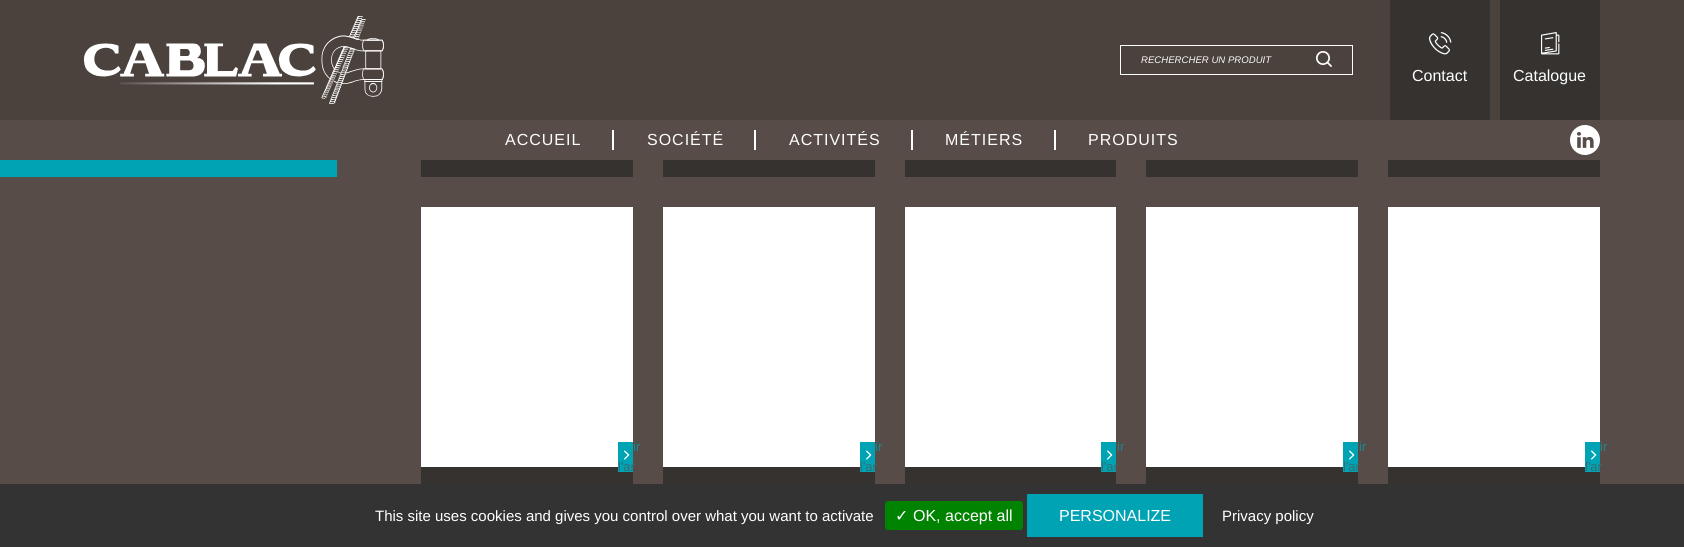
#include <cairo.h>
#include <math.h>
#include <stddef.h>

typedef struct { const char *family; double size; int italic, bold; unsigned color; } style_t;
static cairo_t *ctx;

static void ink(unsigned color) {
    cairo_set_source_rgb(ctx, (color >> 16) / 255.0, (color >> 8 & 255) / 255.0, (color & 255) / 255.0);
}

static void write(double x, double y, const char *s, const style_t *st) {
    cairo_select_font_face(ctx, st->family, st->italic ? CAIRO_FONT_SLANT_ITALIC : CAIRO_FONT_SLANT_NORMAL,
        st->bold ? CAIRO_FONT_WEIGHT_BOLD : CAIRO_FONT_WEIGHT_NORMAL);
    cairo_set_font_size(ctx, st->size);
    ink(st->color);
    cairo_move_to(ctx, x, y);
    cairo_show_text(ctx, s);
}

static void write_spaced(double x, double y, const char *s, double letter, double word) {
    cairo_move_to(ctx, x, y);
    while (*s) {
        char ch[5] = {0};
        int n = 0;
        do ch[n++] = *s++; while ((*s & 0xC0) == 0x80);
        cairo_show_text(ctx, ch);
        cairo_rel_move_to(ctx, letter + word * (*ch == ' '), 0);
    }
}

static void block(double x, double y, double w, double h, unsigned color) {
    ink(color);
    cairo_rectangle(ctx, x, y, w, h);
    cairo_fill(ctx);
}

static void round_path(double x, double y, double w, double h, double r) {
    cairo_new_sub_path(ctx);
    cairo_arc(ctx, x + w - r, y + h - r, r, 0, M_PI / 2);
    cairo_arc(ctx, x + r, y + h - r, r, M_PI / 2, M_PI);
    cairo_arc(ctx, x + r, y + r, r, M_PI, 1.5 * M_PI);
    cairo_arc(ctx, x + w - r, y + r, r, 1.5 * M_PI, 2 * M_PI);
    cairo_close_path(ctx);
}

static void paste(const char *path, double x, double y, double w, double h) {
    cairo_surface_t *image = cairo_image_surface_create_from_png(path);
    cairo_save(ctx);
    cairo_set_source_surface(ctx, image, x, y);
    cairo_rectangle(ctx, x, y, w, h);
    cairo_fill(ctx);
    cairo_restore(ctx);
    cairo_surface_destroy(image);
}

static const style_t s1 = {"Liberation Sans", 9.6, 1, 0, 0xf8f8f8};
static const style_t s2 = {"Liberation Sans", 16, 0, 0, 0xffffff};
static const style_t s3 = {"Liberation Sans", 13, 0, 0, 0x1d8791};
static const style_t s4 = {"Liberation Sans", 13, 0, 0, 0x356d71};
static const style_t s5 = {"Liberation Sans", 13, 0, 0, 0x20828a};
static const style_t s6 = {"Liberation Sans", 15, 0, 0, 0xffffff};
static const style_t s7 = {"DejaVu Sans", 16, 0, 0, 0xffffff};

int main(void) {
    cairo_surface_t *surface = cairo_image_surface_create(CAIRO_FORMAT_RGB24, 1684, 547);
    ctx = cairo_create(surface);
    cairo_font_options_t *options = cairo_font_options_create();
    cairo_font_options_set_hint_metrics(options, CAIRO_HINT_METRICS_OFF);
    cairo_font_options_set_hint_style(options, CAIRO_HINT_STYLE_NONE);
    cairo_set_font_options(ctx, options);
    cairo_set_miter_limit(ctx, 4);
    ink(0x574c47);
    cairo_paint(ctx);
    block(0, 0, 1684, 120, 0x4b423e);
    paste("pic1.png", 84, 16, 300, 88);
    cairo_rectangle(ctx, 1120.5, 45.5, 232, 29);
    ink(0xffffff);
    cairo_set_line_width(ctx, 1);
    cairo_stroke(ctx);
    write(1141, 63, "RECHERCHER UN PRODUIT", &s1);
    paste("pic2.png", 1316, 51, 16, 16);
    block(1390, 0, 100, 120, 0x353230);
    paste("pic3.png", 1429, 32, 23, 23);
    write(1412, 81, "Contact", &s2);
    block(1500, 0, 100, 120, 0x353230);
    paste("pic4.png", 1541, 32, 19, 23);
    write(1513, 81, "Catalogue", &s2);
    write_spaced(505, 145, "ACCUEIL", 1, 0);
    block(612, 130, 2, 20, 0xffffff);
    write_spaced(647, 145, "SOCIÉTÉ", 1, 0);
    block(754, 130, 2, 20, 0xffffff);
    write_spaced(789, 145, "ACTIVITÉS", 1, 0);
    block(911, 130, 2, 20, 0xffffff);
    write_spaced(945, 145, "MÉTIERS", 1, 0);
    block(1054, 130, 2, 20, 0xffffff);
    write_spaced(1088, 145, "PRODUITS", 1, 0);
    cairo_new_path(ctx);
    cairo_arc(ctx, 1585, 140, 15, 0, 2 * M_PI);
    cairo_fill(ctx);
    paste("pic5.png", 1577, 132, 17, 16);
    block(0, 160, 337, 17, 0x00a3b4);
    block(421, 160, 212, 17, 0x353230);
    block(663, 160, 212, 17, 0x353230);
    block(905, 160, 211, 17, 0x353230);
    block(1146, 160, 212, 17, 0x353230);
    block(1388, 160, 212, 17, 0x353230);
    block(421, 207, 212, 260, 0xffffff);
    block(421, 467, 212, 17, 0x353230);
    block(618, 442, 15, 30, 0x00a3b4);
    write(633, 451, "ir", &s3);
    write(618, 471, "l'ar", &s4);
    paste("pic6.png", 624, 450, 6, 10);
    block(663, 207, 212, 260, 0xffffff);
    block(663, 467, 212, 17, 0x353230);
    block(860, 442, 15, 30, 0x00a3b4);
    write(875, 451, "ir", &s3);
    write(860, 471, "l'ar", &s4);
    paste("pic6.png", 866, 450, 6, 10);
    block(905, 207, 211, 260, 0xffffff);
    block(905, 467, 211, 17, 0x353230);
    block(1101, 442, 15, 30, 0x00a3b4);
    write(1117, 451, "ir", &s5);
    write(1101, 471, "l'ar", &s4);
    paste("pic6.png", 1107, 450, 6, 10);
    block(1146, 207, 212, 260, 0xffffff);
    block(1146, 467, 212, 17, 0x353230);
    block(1343, 442, 15, 30, 0x00a3b4);
    write(1359, 451, "ir", &s3);
    write(1343, 471, "l'ar", &s4);
    paste("pic6.png", 1349, 450, 6, 10);
    block(1388, 207, 212, 260, 0xffffff);
    block(1388, 467, 212, 17, 0x353230);
    block(1585, 442, 15, 30, 0x00a3b4);
    write(1600, 451, "ir", &s3);
    write(1585, 471, "l'ar", &s4);
    paste("pic6.png", 1591, 450, 6, 10);
    block(0, 484, 1684, 63, 0x333333);
    write(375, 521, "This site uses cookies and gives you control over what you want to activate", &s6);
    ink(0x008300);
    round_path(885, 501, 138, 29, 3);
    cairo_fill(ctx);
    write(895, 521, "✓", &s7);
    write(913, 521, "OK, accept all", &s2);
    block(1027, 494, 176, 43, 0x00a3b4);
    write(1059, 521, "PERSONALIZE", &s2);
    write(1222, 521, "Privacy policy", &s6);
    cairo_surface_write_to_png(surface, "screenshot.png");
    cairo_font_options_destroy(options);
    cairo_destroy(ctx);
    cairo_surface_destroy(surface);
    return 0;
}
